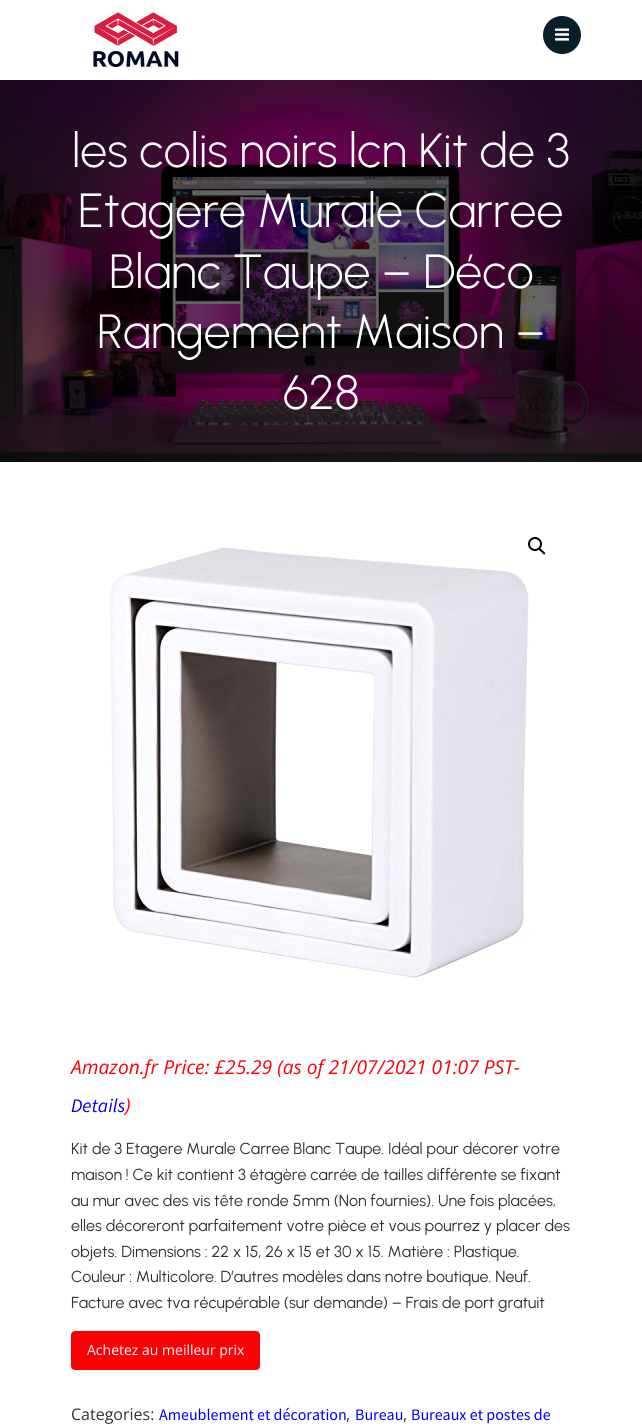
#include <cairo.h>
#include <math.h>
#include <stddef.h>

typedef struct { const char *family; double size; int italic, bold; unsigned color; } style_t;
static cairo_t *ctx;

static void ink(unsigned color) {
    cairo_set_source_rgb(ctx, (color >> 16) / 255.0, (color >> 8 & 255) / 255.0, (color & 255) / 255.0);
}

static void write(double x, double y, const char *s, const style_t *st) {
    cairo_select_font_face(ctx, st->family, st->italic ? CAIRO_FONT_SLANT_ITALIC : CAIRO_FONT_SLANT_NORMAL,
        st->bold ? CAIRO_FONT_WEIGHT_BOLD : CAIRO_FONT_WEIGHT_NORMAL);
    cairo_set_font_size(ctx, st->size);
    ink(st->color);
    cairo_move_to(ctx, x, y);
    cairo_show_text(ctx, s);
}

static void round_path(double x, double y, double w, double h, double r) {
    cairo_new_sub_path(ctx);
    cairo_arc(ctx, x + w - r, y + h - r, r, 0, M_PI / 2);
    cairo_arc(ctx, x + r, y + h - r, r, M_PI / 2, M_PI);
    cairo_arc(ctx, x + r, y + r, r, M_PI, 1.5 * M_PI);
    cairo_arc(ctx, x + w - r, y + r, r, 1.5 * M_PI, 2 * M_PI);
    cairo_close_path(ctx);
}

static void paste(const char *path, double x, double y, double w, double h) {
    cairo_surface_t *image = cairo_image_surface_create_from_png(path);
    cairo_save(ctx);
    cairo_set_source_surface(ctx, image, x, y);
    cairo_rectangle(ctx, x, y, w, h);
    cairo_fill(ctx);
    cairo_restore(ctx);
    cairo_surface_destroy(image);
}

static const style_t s1 = {"Urbanist Light", 48, 0, 0, 0xffffff};
static const style_t s2 = {"Open Sans", 19.2, 1, 0, 0xfa0106};
static const style_t s3 = {"Source Sans Pro", 19.2, 1, 0, 0x0000ff};
static const style_t s4 = {"Urbanist", 16, 0, 0, 0x323232};
static const style_t s5 = {"Open Sans", 14, 0, 0, 0xffffff};
static const style_t s6 = {"Open Sans", 16, 0, 0, 0x323232};
static const style_t s7 = {"Source Sans Pro", 16, 0, 0, 0x0000ff};

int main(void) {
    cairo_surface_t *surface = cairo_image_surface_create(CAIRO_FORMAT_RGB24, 642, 1427);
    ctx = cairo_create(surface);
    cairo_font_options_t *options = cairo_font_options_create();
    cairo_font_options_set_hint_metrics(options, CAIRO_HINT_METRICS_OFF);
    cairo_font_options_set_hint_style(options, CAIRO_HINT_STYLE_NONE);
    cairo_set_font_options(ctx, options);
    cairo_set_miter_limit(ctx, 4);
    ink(0xffffff);
    cairo_paint(ctx);
    paste("pic1.png", 93, 12, 86, 56);
    ink(0x0a1f29);
    cairo_arc(ctx, 562, 35, 19, 0, 2 * M_PI);
    cairo_fill(ctx);
    paste("pic2.png", 555, 28, 14, 13);
    paste("pic3.png", 0, 80, 642, 382);
    write(72, 167, "les colis noirs lcn Kit de 3", &s1);
    write(78, 227, "Etagere Murale Carree", &s1);
    write(109, 288, "Blanc Taupe – Déco", &s1);
    write(97, 348, "Rangement Maison –", &s1);
    write(283, 409, "628", &s1);
    paste("pic4.png", 110, 545, 419, 435);
    cairo_arc(ctx, 535, 544, 6, 0, 2 * M_PI);
    ink(0x000000);
    cairo_stroke(ctx);
    cairo_new_path(ctx);
    cairo_move_to(ctx, 539, 548.5);
    cairo_curve_to(ctx, 540.5, 547.5, 542, 550, 542.5, 550.5);
    cairo_curve_to(ctx, 543.5, 551, 546, 553, 545, 554);
    cairo_curve_to(ctx, 543.5, 555.5, 542, 552.5, 541.5, 552);
    cairo_curve_to(ctx, 540.5, 551.5, 538, 549.5, 539, 548.5);
    cairo_close_path(ctx);
    cairo_fill(ctx);
    write(71, 1074, "Amazon.fr Price: £25.29 (as of 21/07/2021 01:07 PST-", &s2);
    write(71, 1112, "Details", &s3);
    write(125, 1112, ")", &s2);
    write(71, 1154, "Kit de 3 Etagere Murale Carree Blanc Taupe. Idéal pour décorer votre", &s4);
    write(71, 1180, "maison ! Ce kit contient 3 étagère carrée de tailles différente se fixant", &s4);
    write(71, 1206, "au mur avec des vis tête ronde 5mm (Non fournies). Une fois placées,", &s4);
    write(71, 1231, "elles décoreront parfaitement votre pièce et vous pourrez y placer des", &s4);
    write(71, 1257, "objets. Dimensions : 22 x 15, 26 x 15 et 30 x 15. Matière : Plastique.", &s4);
    write(71, 1282, "Couleur : Multicolore. D’autres modèles dans notre boutique. Neuf.", &s4);
    write(71, 1308, "Facture avec tva récupérable (sur demande) – Frais de port gratuit", &s4);
    ink(0xfa0106);
    round_path(72, 1332, 187, 37, 3);
    cairo_fill_preserve(ctx);
    cairo_stroke(ctx);
    write(87, 1355, "Achetez au meilleur prix", &s5);
    write(71, 1420, "Categories:", &s6);
    write(159, 1420, "Ameublement et décoration", &s7);
    write(346, 1420, ",", &s6);
    write(355, 1420, "Bureau", &s7);
    write(403, 1420, ",", &s6);
    write(411, 1420, "Bureaux et postes de", &s7);
    cairo_surface_write_to_png(surface, "screenshot.png");
    cairo_font_options_destroy(options);
    cairo_destroy(ctx);
    cairo_surface_destroy(surface);
    return 0;
}
